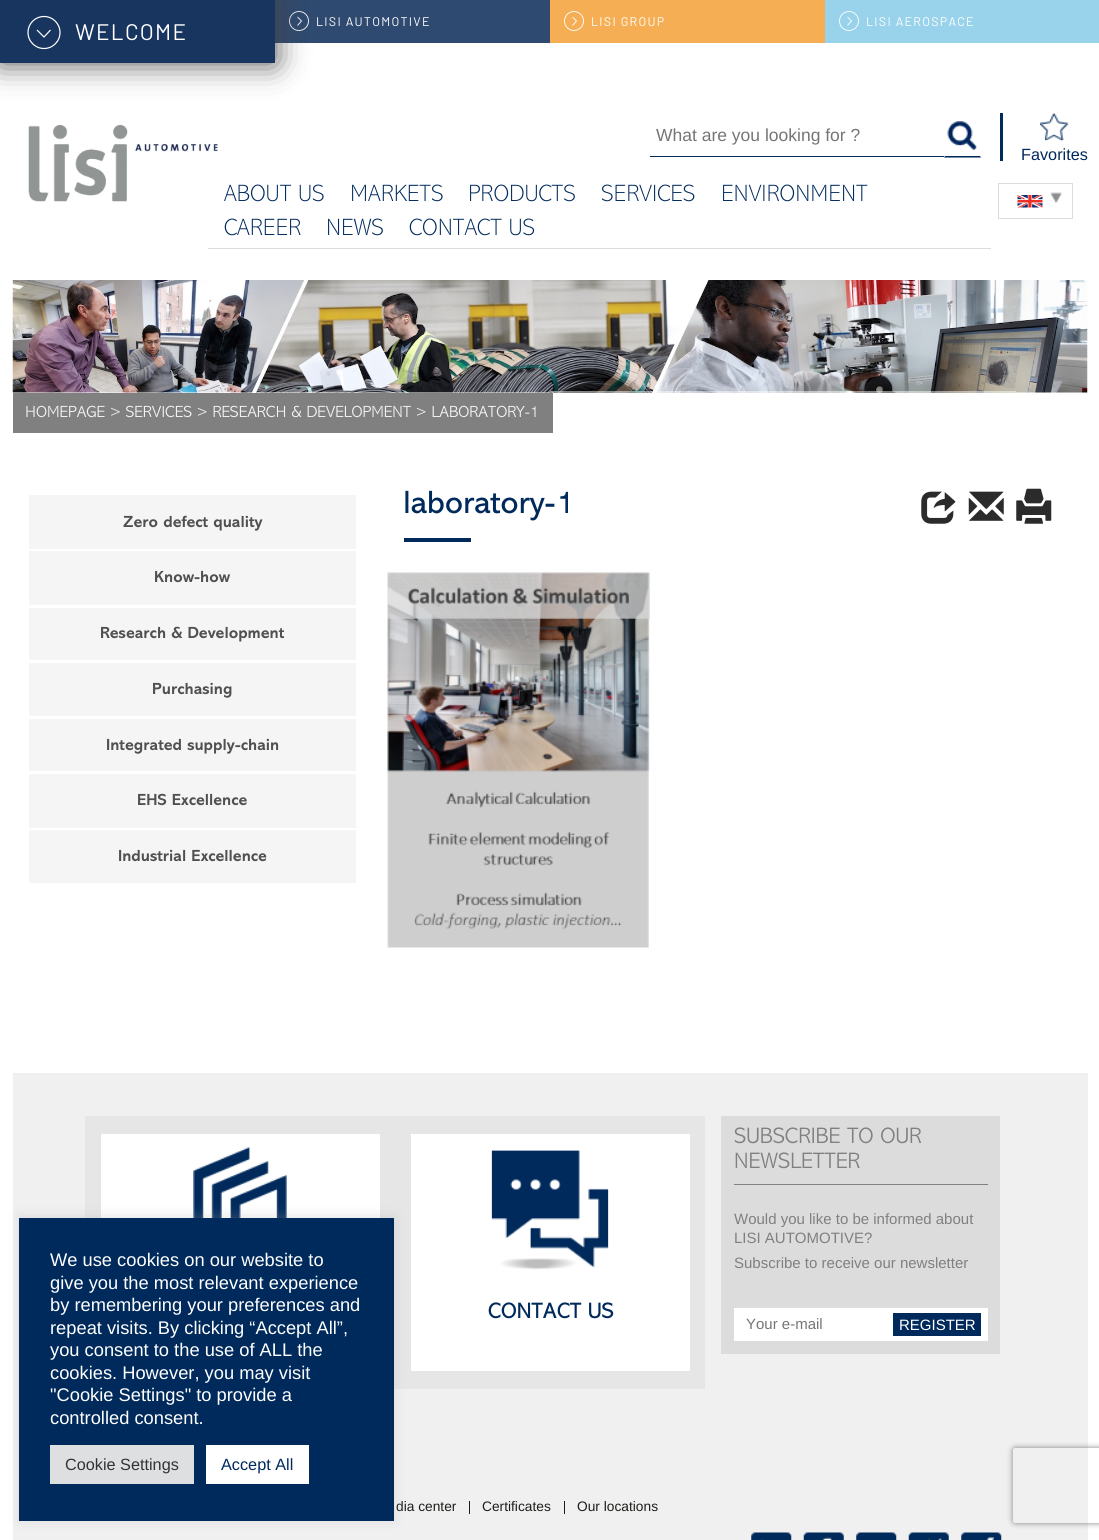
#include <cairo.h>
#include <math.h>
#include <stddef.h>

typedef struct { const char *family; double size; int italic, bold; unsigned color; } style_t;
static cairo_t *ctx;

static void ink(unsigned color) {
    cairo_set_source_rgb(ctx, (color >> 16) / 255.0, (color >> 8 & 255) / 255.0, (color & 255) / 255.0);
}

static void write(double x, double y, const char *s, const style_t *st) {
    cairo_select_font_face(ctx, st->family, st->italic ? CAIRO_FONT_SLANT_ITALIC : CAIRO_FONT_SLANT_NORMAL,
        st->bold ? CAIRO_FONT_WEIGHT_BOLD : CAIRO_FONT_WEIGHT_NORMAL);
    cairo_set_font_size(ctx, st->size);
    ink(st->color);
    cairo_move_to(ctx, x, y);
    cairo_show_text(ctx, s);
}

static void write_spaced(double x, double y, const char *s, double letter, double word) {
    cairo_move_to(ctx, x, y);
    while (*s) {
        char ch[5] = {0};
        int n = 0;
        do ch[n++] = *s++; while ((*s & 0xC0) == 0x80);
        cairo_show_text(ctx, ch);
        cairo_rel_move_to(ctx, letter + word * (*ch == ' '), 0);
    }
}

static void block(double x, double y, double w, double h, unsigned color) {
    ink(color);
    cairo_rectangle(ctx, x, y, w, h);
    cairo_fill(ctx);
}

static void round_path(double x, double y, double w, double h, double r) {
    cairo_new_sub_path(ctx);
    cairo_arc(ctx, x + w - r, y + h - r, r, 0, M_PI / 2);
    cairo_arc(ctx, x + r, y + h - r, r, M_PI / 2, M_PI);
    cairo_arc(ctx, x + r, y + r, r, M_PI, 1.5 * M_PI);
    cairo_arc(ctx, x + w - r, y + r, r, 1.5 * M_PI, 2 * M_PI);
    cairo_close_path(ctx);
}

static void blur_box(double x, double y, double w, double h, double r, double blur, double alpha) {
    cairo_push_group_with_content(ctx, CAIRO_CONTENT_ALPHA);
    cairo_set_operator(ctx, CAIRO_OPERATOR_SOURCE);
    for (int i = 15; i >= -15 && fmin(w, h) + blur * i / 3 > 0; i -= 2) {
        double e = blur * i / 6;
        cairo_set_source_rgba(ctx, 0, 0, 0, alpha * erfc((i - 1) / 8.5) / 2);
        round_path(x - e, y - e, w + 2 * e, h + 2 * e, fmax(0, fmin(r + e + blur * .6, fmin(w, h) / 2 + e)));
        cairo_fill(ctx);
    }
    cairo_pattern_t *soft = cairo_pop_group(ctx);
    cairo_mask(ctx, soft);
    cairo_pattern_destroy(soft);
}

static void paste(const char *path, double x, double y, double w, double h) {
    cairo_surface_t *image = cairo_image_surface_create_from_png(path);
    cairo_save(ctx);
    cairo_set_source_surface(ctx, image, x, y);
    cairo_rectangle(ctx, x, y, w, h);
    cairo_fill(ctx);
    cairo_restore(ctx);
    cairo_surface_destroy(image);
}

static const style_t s1 = {"Liberation Sans", 17.5, 0, 0, 0x757575};
static const style_t s2 = {"Liberation Sans", 16.25, 0, 0, 0x002a5c};
static const style_t s3 = {"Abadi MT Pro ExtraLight", 23.75, 0, 0, 0x002a5c};
static const style_t s4 = {"Abadi MT Pro Light", 16.25, 0, 0, 0xf2f3f3};
static const style_t s5 = {"Abadi MT Pro", 32.5, 0, 0, 0x002a5c};
static const style_t s6 = {"Abadi MT Pro", 16.25, 0, 1, 0x505050};
static const style_t s7 = {"Abadi MT Pro Light", 22.5, 0, 0, 0x808080};
static const style_t s8 = {"Liberation Sans", 15, 0, 0, 0x808080};
static const style_t s9 = {"Liberation Sans", 15, 0, 0, 0x757575};
static const style_t s10 = {"Liberation Sans", 15, 0, 0, 0xffffff};
static const style_t s11 = {"Abadi MT Pro", 22.5, 0, 0, 0x002a5c};
static const style_t s12 = {"Liberation Sans", 13.75, 0, 0, 0x1d1d1b};
static const style_t s13 = {"Liberation Sans", 18.3, 0, 0, 0xffffff};
static const style_t s14 = {"Liberation Sans", 16.25, 0, 0, 0x333333};

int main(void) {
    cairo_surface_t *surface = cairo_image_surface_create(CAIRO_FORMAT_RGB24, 1099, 1540);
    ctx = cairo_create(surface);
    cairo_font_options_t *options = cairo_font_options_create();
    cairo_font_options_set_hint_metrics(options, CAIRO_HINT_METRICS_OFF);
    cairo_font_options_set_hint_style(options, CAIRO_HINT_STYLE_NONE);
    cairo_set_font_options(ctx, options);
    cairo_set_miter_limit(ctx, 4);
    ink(0xffffff);
    cairo_paint(ctx);
    block(275, 0, 275, 43, 0x2f4a70);
    cairo_arc(ctx, 299, 21, 9.5, 0, 2 * M_PI);
    ink(0xffffff);
    cairo_set_line_width(ctx, 0.9);
    cairo_stroke(ctx);
    cairo_new_path(ctx);
    cairo_move_to(ctx, 297.5, 17);
    cairo_line_to(ctx, 301.5, 21);
    cairo_line_to(ctx, 297.5, 25.5);
    cairo_stroke(ctx);
    cairo_select_font_face(ctx, "Barlow", CAIRO_FONT_SLANT_NORMAL, CAIRO_FONT_WEIGHT_NORMAL);
    cairo_set_font_size(ctx, 12.5);
    write_spaced(316, 26, "LISI AUTOMOTIVE", 1.25, 0);
    block(550, 0, 275, 43, 0xf5ae53);
    cairo_new_path(ctx);
    cairo_arc(ctx, 574, 21, 9.5, 0, 2 * M_PI);
    ink(0xffffff);
    cairo_stroke(ctx);
    cairo_new_path(ctx);
    cairo_move_to(ctx, 572.5, 17);
    cairo_line_to(ctx, 576.5, 21);
    cairo_line_to(ctx, 572.5, 25.5);
    cairo_stroke(ctx);
    write_spaced(591, 26, "LISI GROUP", 1.25, 0);
    block(825, 0, 274, 43, 0x98d2eb);
    cairo_new_path(ctx);
    cairo_arc(ctx, 849, 21, 9.5, 0, 2 * M_PI);
    ink(0xffffff);
    cairo_stroke(ctx);
    cairo_new_path(ctx);
    cairo_move_to(ctx, 847.5, 17);
    cairo_line_to(ctx, 851.5, 21);
    cairo_line_to(ctx, 847.5, 25.5);
    cairo_stroke(ctx);
    write_spaced(866, 26, "LISI AEROSPACE", 1.25, 0);
    ink(0x444444);
    blur_box(0, 0, 275, 63, 0, 15.5, 0.95);
    block(0, 0, 275, 63, 0x183560);
    cairo_arc(ctx, 44, 32.5, 16, 0, 2 * M_PI);
    ink(0xffffff);
    cairo_set_line_width(ctx, 1.2);
    cairo_stroke(ctx);
    cairo_new_path(ctx);
    cairo_move_to(ctx, 50.5, 30);
    cairo_line_to(ctx, 44, 37);
    cairo_line_to(ctx, 37, 30);
    cairo_stroke(ctx);
    cairo_set_font_size(ctx, 22.5);
    write_spaced(75, 40, "WELCOME", 1.25, 0);
    block(1000, 113, 3, 48, 0x002a5c);
    block(650, 156, 294, 1, 0x002a5c);
    write(656, 141, "What are you looking for ?", &s1);
    paste("pic1.png", 947, 121, 30, 29);
    ink(0x002a5c);
    cairo_new_path(ctx);
    cairo_move_to(ctx, 981, 157.5);
    cairo_line_to(ctx, 944, 157.5);
    cairo_line_to(ctx, 945, 156);
    cairo_line_to(ctx, 980, 156);
    cairo_close_path(ctx);
    cairo_fill(ctx);
    paste("pic2.png", 1040, 112, 29, 29);
    write(1021, 160, "Favorites", &s2);
    paste("pic3.png", 28, 125, 190, 77);
    block(208, 248, 783, 1, 0xdcdcdc);
    write(224, 201, "ABOUT US", &s3);
    write(350, 201, "MARKETS", &s3);
    write(468, 201, "PRODUCTS", &s3);
    write(601, 201, "SERVICES", &s3);
    write(721, 201, "ENVIRONMENT", &s3);
    write(224, 235, "CAREER", &s3);
    write(326, 235, "NEWS", &s3);
    write(409, 235, "CONTACT US", &s3);
    paste("pic4.png", 1050, 192, 12, 11);
    cairo_rectangle(ctx, 998.5, 183.5, 74, 35);
    ink(0xdcdcdc);
    cairo_set_line_width(ctx, 1);
    cairo_stroke(ctx);
    paste("pic5.png", 1017, 195, 26, 13);
    paste("pic6.png", 12, 280, 1076, 113);
    cairo_set_source_rgba(ctx, 1, 1, 1, 0.5);
    cairo_rectangle(ctx, 550, 391, 466, 1);
    cairo_fill(ctx);
    block(13, 393, 540, 40, 0x808080);
    write(25, 417, "HOMEPAGE > SERVICES > RESEARCH & DEVELOPMENT > LABORATORY-1", &s4);
    write(403, 513, "laboratory-1", &s5);
    block(404, 538, 67, 4, 0x002a5c);
    paste("pic7.png", 921, 491, 35, 33);
    paste("pic8.png", 968, 491, 36, 30);
    paste("pic9.png", 1016, 488, 36, 36);
    paste("pic10.png", 387, 572, 263, 376);
    block(29, 495, 327, 54, 0xf5f5f5);
    write(123, 527, "Zero defect quality", &s6);
    block(29, 551, 327, 54, 0xf5f5f5);
    write(154, 582, "Know-how", &s6);
    block(29, 608, 327, 52, 0xf5f5f5);
    write(100, 638, "Research & Development", &s6);
    block(29, 663, 327, 53, 0xf5f5f5);
    write(152, 694, "Purchasing", &s6);
    block(29, 719, 327, 52, 0xf5f5f5);
    write(106, 750, "Integrated supply-chain", &s6);
    block(29, 774, 327, 54, 0xf5f5f5);
    write(137, 805, "EHS Excellence", &s6);
    block(29, 830, 327, 53, 0xf5f5f5);
    write(118, 861, "Industrial Excellence", &s6);
    block(13, 1073, 1075, 467, 0xf0f0f0);
    block(85, 1116, 620, 273, 0xe6e6e7);
    block(101, 1134, 279, 84, 0xffffff);
    paste("pic11.png", 193, 1147, 94, 71);
    block(721, 1116, 279, 238, 0xdcdcdc);
    block(734, 1184, 254, 1, 0x808080);
    write(734, 1143, "SUBSCRIBE TO OUR", &s7);
    write(734, 1168, "NEWSLETTER", &s7);
    write(734, 1224, "Would you like to be informed about", &s8);
    write(734, 1243, "LISI AUTOMOTIVE?", &s8);
    write(734, 1268, "Subscribe to receive our newsletter", &s8);
    block(734, 1308, 254, 33, 0xffffff);
    write(746, 1329, "Your e-mail", &s9);
    block(893, 1313, 88, 23, 0x002a5c);
    write(899, 1330, "REGISTER", &s10);
    block(411, 1134, 279, 237, 0xffffff);
    paste("pic12.png", 491, 1150, 118, 120);
    write(488, 1318, "CONTACT US", &s11);
    block(469, 1501, 1, 13, 0x1d1d1b);
    write(396, 1511, "dia center", &s12);
    block(564, 1501, 1, 13, 0x1d1d1b);
    write(482, 1511, "Certificates", &s12);
    write(577, 1511, "Our locations", &s12);
    paste("pic13.png", 751, 1532, 41, 8);
    paste("pic14.png", 803, 1532, 41, 8);
    paste("pic15.png", 856, 1532, 41, 8);
    paste("pic16.png", 908, 1532, 41, 8);
    paste("pic17.png", 961, 1532, 41, 8);
    ink(0xacabab);
    blur_box(19, 1216, 375, 304, 0, 6, 0.3);
    block(19, 1218, 375, 303, 0x002a5b);
    write(50, 1266, "We use cookies on our website to", &s13);
    write(50, 1289, "give you the most relevant experience", &s13);
    write(50, 1311, "by remembering your preferences and", &s13);
    write(50, 1334, "repeat visits. By clicking “Accept All”,", &s13);
    write(50, 1356, "you consent to the use of ALL the", &s13);
    write(50, 1379, "cookies. However, you may visit", &s13);
    write(50, 1401, "\"Cookie Settings\" to provide a", &s13);
    write(50, 1424, "controlled consent.", &s13);
    block(50, 1445, 144, 39, 0xdedfe0);
    write(65, 1470, "Cookie Settings", &s14);
    block(206, 1445, 103, 39, 0xffffff);
    write(221, 1470, "Accept All", &s2);
    cairo_save(ctx);
    cairo_set_fill_rule(ctx, CAIRO_FILL_RULE_EVEN_ODD);
    cairo_new_path(ctx);
    cairo_move_to(ctx, 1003, 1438);
    cairo_line_to(ctx, 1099, 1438);
    cairo_line_to(ctx, 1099, 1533);
    cairo_line_to(ctx, 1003, 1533);
    cairo_close_path(ctx);
    cairo_move_to(ctx, 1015.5, 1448);
    cairo_line_to(ctx, 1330.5, 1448);
    cairo_curve_to(ctx, 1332, 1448, 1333, 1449, 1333, 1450.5);
    cairo_line_to(ctx, 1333, 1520.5);
    cairo_curve_to(ctx, 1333, 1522, 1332, 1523, 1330.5, 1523);
    cairo_line_to(ctx, 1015.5, 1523);
    cairo_curve_to(ctx, 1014, 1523, 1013, 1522, 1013, 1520.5);
    cairo_line_to(ctx, 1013, 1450.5);
    cairo_curve_to(ctx, 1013, 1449, 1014, 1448, 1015.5, 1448);
    cairo_close_path(ctx);
    cairo_clip(ctx);
    ink(0x808080);
    blur_box(1013, 1448, 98, 75, 2.5, 3, 1);
    cairo_restore(ctx);
    cairo_surface_write_to_png(surface, "screenshot.png");
    cairo_font_options_destroy(options);
    cairo_destroy(ctx);
    cairo_surface_destroy(surface);
    return 0;
}
